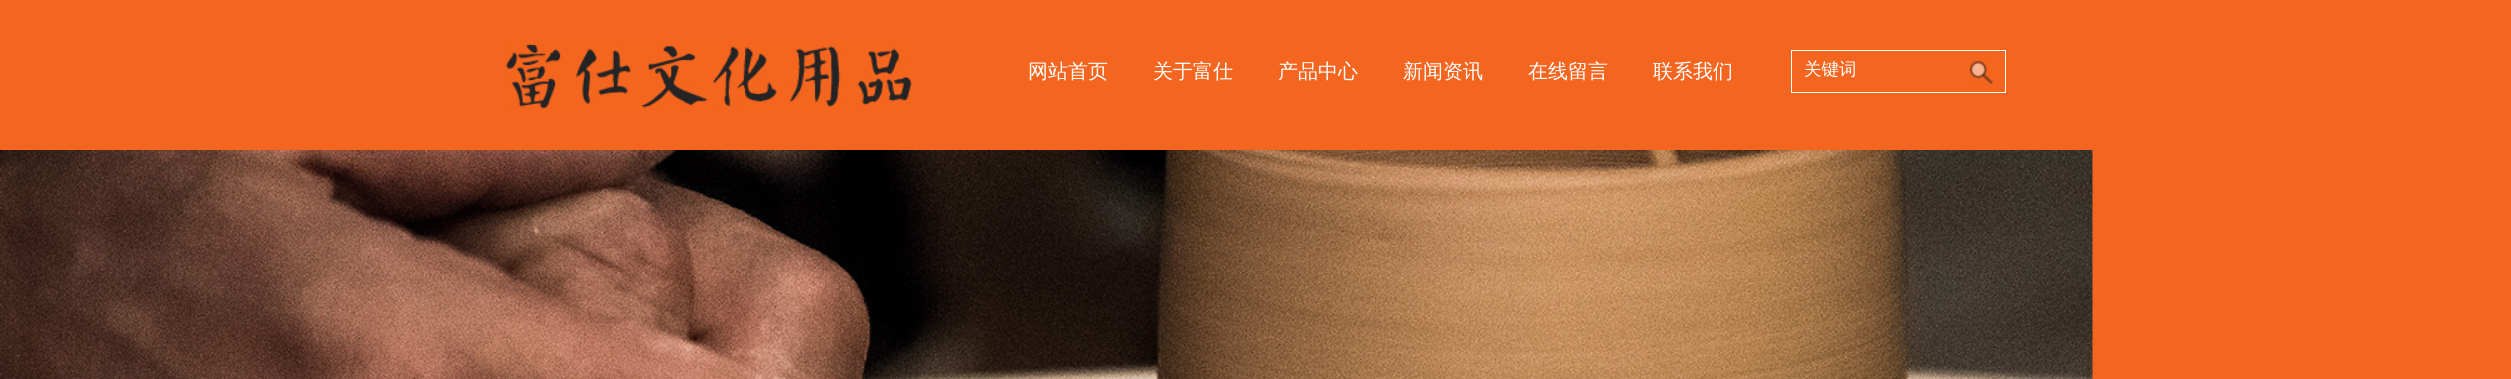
#include <cairo.h>
#include <math.h>
#include <stddef.h>

typedef struct { const char *family; double size; int italic, bold; unsigned color; } style_t;
static cairo_t *ctx;

static void ink(unsigned color) {
    cairo_set_source_rgb(ctx, (color >> 16) / 255.0, (color >> 8 & 255) / 255.0, (color & 255) / 255.0);
}

static void write(double x, double y, const char *s, const style_t *st) {
    cairo_select_font_face(ctx, st->family, st->italic ? CAIRO_FONT_SLANT_ITALIC : CAIRO_FONT_SLANT_NORMAL,
        st->bold ? CAIRO_FONT_WEIGHT_BOLD : CAIRO_FONT_WEIGHT_NORMAL);
    cairo_set_font_size(ctx, st->size);
    ink(st->color);
    cairo_move_to(ctx, x, y);
    cairo_show_text(ctx, s);
}

static void paste(const char *path, double x, double y, double w, double h) {
    cairo_surface_t *image = cairo_image_surface_create_from_png(path);
    cairo_save(ctx);
    cairo_set_source_surface(ctx, image, x, y);
    cairo_rectangle(ctx, x, y, w, h);
    cairo_fill(ctx);
    cairo_restore(ctx);
    cairo_surface_destroy(image);
}

static const style_t s1 = {"WenQuanYi Zen Hei Medium", 20, 0, 0, 0xffffff};
static const style_t s2 = {"WenQuanYi Zen Hei Medium", 17.5, 0, 0, 0xffffff};

int main(void) {
    cairo_surface_t *surface = cairo_image_surface_create(CAIRO_FORMAT_RGB24, 2511, 379);
    ctx = cairo_create(surface);
    cairo_font_options_t *options = cairo_font_options_create();
    cairo_font_options_set_hint_metrics(options, CAIRO_HINT_METRICS_OFF);
    cairo_font_options_set_hint_style(options, CAIRO_HINT_STYLE_NONE);
    cairo_set_font_options(ctx, options);
    cairo_set_miter_limit(ctx, 4);
    ink(0xf4661f);
    cairo_paint(ctx);
    paste("pic1.png", 506, 43, 406, 66);
    write(1028, 78, "网站首页", &s1);
    write(1153, 78, "关于富仕", &s1);
    write(1278, 78, "产品中心", &s1);
    write(1403, 78, "新闻资讯", &s1);
    write(1528, 78, "在线留言", &s1);
    write(1653, 78, "联系我们", &s1);
    cairo_rectangle(ctx, 1791.5, 50.5, 214, 42);
    cairo_set_line_width(ctx, 1);
    cairo_stroke(ctx);
    write(1804, 75, "关键词", &s2);
    paste("pic2.png", 1970, 61, 23, 23);
    paste("pic3.png", 0, 150, 2093, 229);
    cairo_surface_write_to_png(surface, "screenshot.png");
    cairo_font_options_destroy(options);
    cairo_destroy(ctx);
    cairo_surface_destroy(surface);
    return 0;
}
